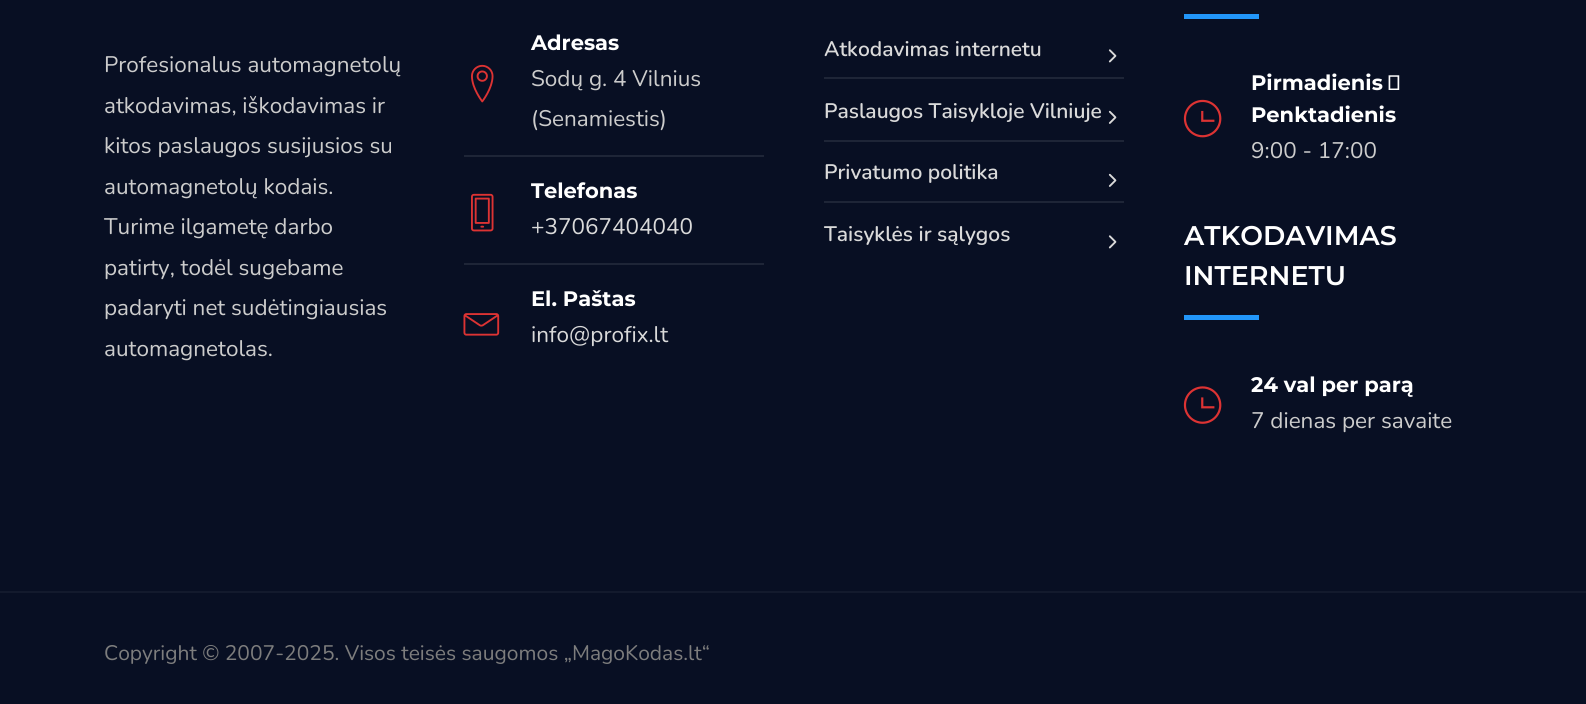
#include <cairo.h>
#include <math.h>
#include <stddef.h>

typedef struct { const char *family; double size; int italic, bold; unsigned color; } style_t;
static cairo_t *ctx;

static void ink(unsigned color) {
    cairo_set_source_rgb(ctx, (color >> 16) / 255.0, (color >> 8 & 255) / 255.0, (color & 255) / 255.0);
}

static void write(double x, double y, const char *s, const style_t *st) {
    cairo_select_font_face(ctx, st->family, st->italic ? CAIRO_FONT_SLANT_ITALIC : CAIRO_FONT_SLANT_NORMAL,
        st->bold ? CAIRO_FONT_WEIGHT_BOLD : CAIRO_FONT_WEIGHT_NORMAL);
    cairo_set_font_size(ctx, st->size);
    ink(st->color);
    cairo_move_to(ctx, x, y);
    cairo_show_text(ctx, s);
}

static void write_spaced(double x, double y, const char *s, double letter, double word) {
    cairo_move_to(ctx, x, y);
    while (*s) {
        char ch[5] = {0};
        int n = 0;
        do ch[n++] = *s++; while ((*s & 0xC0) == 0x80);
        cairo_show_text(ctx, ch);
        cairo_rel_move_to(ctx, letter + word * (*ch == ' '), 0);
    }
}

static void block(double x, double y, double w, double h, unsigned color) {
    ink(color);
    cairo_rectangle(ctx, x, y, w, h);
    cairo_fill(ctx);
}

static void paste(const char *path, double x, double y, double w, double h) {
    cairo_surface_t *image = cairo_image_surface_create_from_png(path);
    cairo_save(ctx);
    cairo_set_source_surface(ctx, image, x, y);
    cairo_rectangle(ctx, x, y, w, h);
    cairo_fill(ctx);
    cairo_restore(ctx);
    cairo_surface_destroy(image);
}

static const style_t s1 = {"Nunito", 22.5, 0, 0, 0xcccccc};
static const style_t s2 = {"Montserrat", 21, 0, 1, 0xffffff};
static const style_t s3 = {"Nunito", 22.5, 0, 0, 0xdadada};
static const style_t s4 = {"Nunito SemiBold", 21, 0, 0, 0xdadada};
static const style_t s5 = {"Montserrat SemiBold", 27, 0, 0, 0xffffff};
static const style_t s6 = {"Nunito", 21, 0, 0, 0x7d7d7d};

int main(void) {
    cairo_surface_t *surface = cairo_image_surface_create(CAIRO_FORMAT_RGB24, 1586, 704);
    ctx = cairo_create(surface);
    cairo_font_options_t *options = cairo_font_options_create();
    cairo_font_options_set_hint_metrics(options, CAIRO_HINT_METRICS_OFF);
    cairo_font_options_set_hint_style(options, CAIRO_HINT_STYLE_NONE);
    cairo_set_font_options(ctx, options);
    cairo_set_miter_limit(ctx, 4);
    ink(0x080f23);
    cairo_paint(ctx);
    write(104, 72, "Profesionalus automagnetolų", &s1);
    write(104, 113, "atkodavimas, iškodavimas ir", &s1);
    write(104, 153, "kitos paslaugos susijusios su", &s1);
    write(104, 194, "automagnetolų kodais.", &s1);
    write(104, 234, "Turime ilgametę darbo", &s1);
    write(104, 275, "patirty, todėl sugebame", &s1);
    write(104, 315, "padaryti net sudėtingiausias", &s1);
    write(104, 356, "automagnetolas.", &s1);
    block(464, 155, 300, 2, 0x1e2537);
    paste("pic1.png", 471, 64, 23, 39);
    write(531, 50, "Adresas", &s2);
    write(531, 86, "Sodų g. 4 Vilnius", &s1);
    write(531, 126, "(Senamiestis)", &s1);
    block(464, 263, 300, 2, 0x1e2537);
    paste("pic2.png", 471, 193, 23, 39);
    write(531, 198, "Telefonas", &s2);
    write(531, 234, "+37067404040", &s3);
    paste("pic3.png", 463, 313, 37, 23);
    write(531, 306, "El. Paštas", &s2);
    write(531, 342, "info@profix.lt", &s3);
    block(824, 77, 300, 2, 0x1e2537);
    write(824, 56, "Atkodavimas internetu", &s4);
    paste("pic4.png", 1108, 49, 9, 14);
    block(824, 140, 300, 2, 0x1e2537);
    write(824, 118, "Paslaugos Taisykloje Vilniuje", &s4);
    paste("pic5.png", 1108, 110, 9, 14);
    block(824, 201, 300, 2, 0x1e2537);
    write(824, 179, "Privatumo politika", &s4);
    paste("pic5.png", 1108, 173, 9, 14);
    write(824, 241, "Taisyklės ir sąlygos", &s4);
    paste("pic4.png", 1108, 235, 9, 14);
    block(1184, 14, 75, 5, 0x2296f9);
    paste("pic6.png", 1183, 99, 39, 39);
    cairo_select_font_face(ctx, "Montserrat", CAIRO_FONT_SLANT_NORMAL, CAIRO_FONT_WEIGHT_BOLD);
    ink(0xffffff);
    write_spaced(1251, 90, "Pirmadienis ‑", 0, -1);
    write(1251, 122, "Penktadienis", &s2);
    write(1251, 158, "9:00 - 17:00", &s1);
    write(1184, 245, "ATKODAVIMAS", &s5);
    write(1184, 285, "INTERNETU", &s5);
    block(1184, 315, 75, 5, 0x2296f9);
    paste("pic7.png", 1183, 386, 39, 38);
    write(1251, 392, "24 val per parą", &s2);
    write(1251, 428, "7 dienas per savaite", &s1);
    block(0, 591, 1586, 2, 0x131a2d);
    write(104, 660, "Copyright © 2007-2025. Visos teisės saugomos „MagoKodas.lt“", &s6);
    cairo_surface_write_to_png(surface, "screenshot.png");
    cairo_font_options_destroy(options);
    cairo_destroy(ctx);
    cairo_surface_destroy(surface);
    return 0;
}
